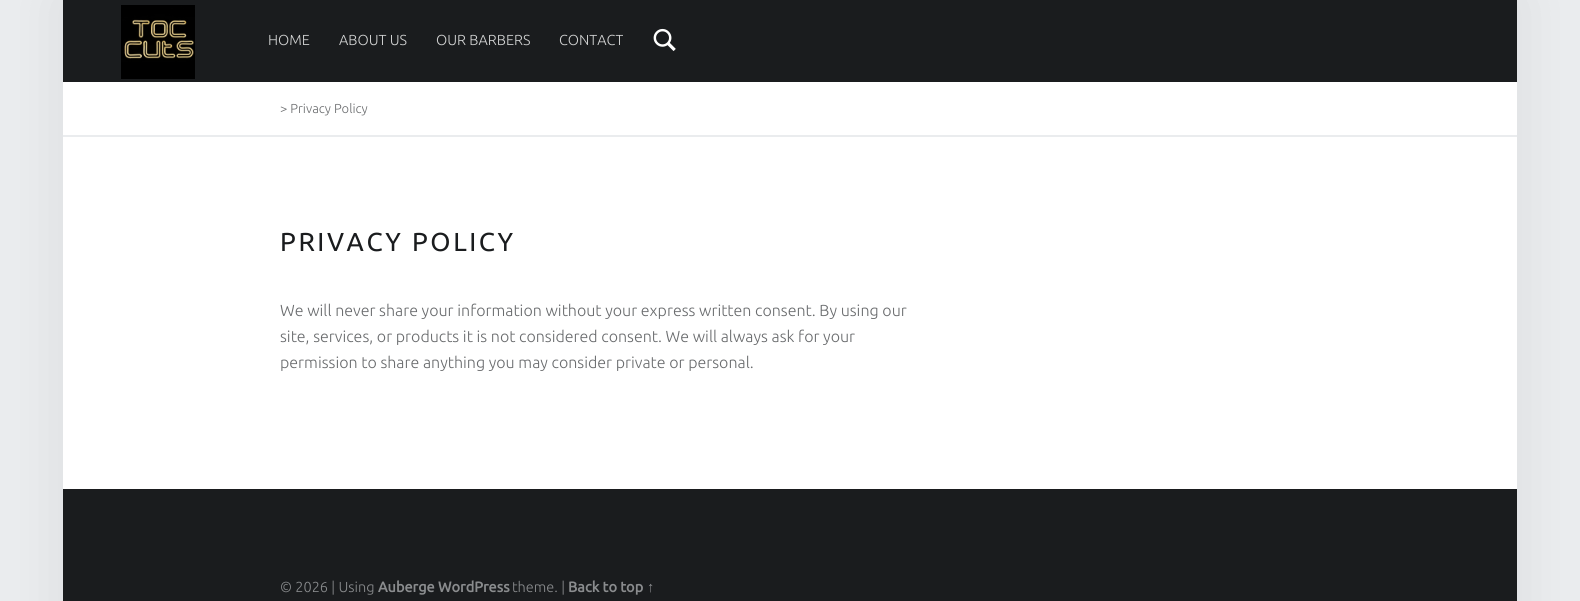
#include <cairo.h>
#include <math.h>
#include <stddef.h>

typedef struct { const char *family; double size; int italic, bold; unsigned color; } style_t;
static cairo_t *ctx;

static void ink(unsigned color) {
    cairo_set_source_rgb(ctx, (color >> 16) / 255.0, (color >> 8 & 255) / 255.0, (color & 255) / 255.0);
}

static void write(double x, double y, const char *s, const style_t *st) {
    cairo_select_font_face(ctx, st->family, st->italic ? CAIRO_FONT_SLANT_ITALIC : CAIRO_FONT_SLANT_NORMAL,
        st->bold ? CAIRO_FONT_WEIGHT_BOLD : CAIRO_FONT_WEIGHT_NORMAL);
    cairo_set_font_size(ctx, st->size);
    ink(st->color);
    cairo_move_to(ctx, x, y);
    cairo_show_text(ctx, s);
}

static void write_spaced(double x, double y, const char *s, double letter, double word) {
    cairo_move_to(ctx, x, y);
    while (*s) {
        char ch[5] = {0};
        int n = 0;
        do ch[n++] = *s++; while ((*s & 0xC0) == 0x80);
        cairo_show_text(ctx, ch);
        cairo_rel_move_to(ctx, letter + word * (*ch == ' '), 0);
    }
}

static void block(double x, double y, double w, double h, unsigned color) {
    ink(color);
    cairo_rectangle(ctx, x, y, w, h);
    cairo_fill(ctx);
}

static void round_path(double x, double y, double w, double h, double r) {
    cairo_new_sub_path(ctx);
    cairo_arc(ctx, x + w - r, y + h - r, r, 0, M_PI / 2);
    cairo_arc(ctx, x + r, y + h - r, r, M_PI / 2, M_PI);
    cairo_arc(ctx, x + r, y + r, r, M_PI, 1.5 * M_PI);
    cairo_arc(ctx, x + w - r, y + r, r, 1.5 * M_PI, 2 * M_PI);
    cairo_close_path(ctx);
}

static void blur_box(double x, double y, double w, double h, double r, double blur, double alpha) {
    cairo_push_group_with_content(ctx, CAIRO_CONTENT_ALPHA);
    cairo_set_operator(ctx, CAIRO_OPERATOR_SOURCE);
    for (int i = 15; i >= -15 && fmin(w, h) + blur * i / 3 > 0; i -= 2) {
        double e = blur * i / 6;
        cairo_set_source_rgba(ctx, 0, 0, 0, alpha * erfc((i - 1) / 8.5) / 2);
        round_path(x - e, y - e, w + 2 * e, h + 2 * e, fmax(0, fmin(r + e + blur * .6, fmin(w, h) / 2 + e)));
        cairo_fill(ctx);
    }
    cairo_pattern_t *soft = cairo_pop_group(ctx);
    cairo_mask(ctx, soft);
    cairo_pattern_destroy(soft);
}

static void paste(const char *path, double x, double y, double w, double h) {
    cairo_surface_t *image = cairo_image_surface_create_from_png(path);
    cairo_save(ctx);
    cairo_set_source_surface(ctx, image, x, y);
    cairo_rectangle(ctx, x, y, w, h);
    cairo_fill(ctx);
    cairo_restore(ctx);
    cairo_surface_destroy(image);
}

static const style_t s1 = {"Ubuntu Light", 14.5, 0, 0, 0xd1d2d2};
static const style_t s2 = {"Ubuntu Light", 13, 0, 0, 0x6a6c6e};
static const style_t s3 = {"Ubuntu Light", 16, 0, 0, 0x6a6c6e};
static const style_t s4 = {"Ubuntu Light", 14.5, 0, 0, 0x8a8c8e};
static const style_t s5 = {"Ubuntu", 14.5, 0, 1, 0x8a8c8e};
static const style_t s6 = {"Liberation Sans", 14.5, 0, 1, 0x8a8c8e};

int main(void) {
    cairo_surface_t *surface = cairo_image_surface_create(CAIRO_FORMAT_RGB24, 1580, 601);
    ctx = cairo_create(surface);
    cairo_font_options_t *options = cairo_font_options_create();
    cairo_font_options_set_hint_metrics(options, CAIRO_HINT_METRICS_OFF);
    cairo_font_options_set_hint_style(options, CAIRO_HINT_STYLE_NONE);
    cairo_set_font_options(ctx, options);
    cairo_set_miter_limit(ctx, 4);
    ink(0xeaecee);
    cairo_paint(ctx);
    ink(0x000000);
    blur_box(63, 0, 1454, 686, 0, 29, 0.07);
    block(63, 82, 1454, 407, 0xffffff);
    block(63, 0, 1454, 82, 0x1a1c1e);
    paste("pic1.png", 121, 5, 74, 74);
    write(268, 45, "HOME", &s1);
    write(339, 45, "ABOUT US", &s1);
    write(436, 45, "OUR BARBERS", &s1);
    write(559, 45, "CONTACT", &s1);
    paste("pic2.png", 653, 28, 23, 23);
    block(63, 135, 1454, 2, 0xeaecee);
    write(280, 113, "> Privacy Policy", &s2);
    cairo_select_font_face(ctx, "Ubuntu", CAIRO_FONT_SLANT_NORMAL, CAIRO_FONT_WEIGHT_NORMAL);
    cairo_set_font_size(ctx, 26);
    ink(0x1a1c1e);
    write_spaced(280, 251, "PRIVACY POLICY", 2.6, 0);
    write(280, 316, "We will never share your information without your express written consent. By using our", &s3);
    write(280, 342, "site, services, or products it is not considered consent. We will always ask for your", &s3);
    write(280, 368, "permission to share anything you may consider private or personal.", &s3);
    block(63, 489, 1454, 112, 0x1a1c1e);
    write(280, 592, "© 2026 | Using", &s4);
    write(378, 592, "Auberge WordPress", &s5);
    write(512, 592, "theme. |", &s4);
    write(568, 592, "Back to top", &s5);
    write(647, 592, "↑", &s6);
    cairo_surface_write_to_png(surface, "screenshot.png");
    cairo_font_options_destroy(options);
    cairo_destroy(ctx);
    cairo_surface_destroy(surface);
    return 0;
}
